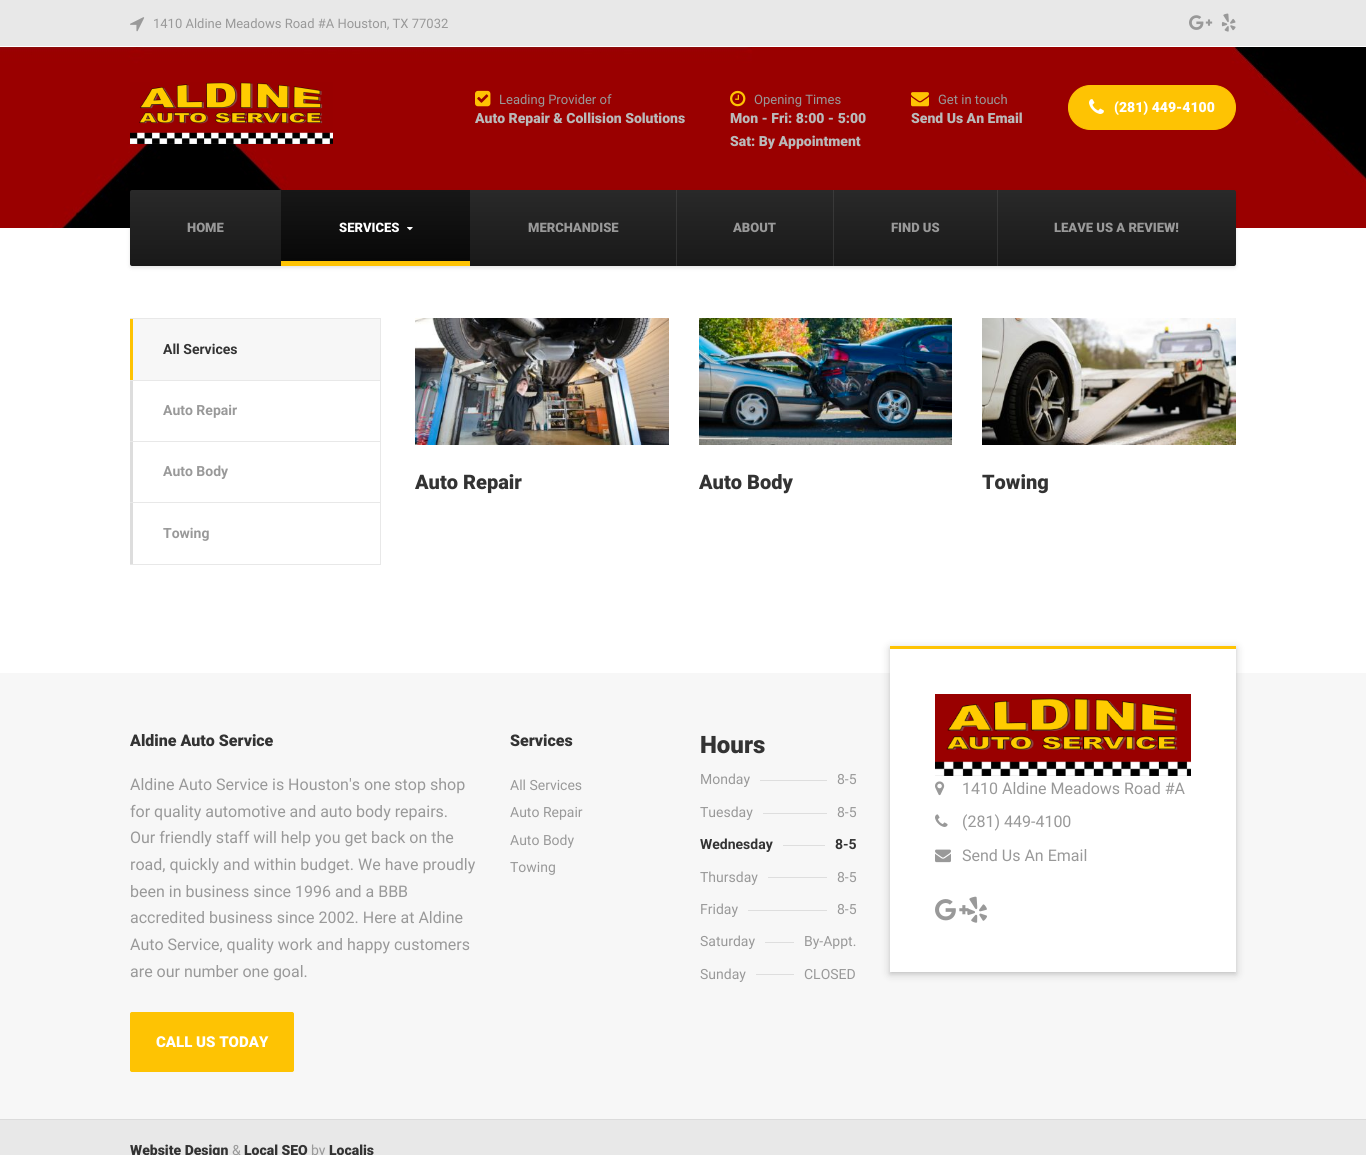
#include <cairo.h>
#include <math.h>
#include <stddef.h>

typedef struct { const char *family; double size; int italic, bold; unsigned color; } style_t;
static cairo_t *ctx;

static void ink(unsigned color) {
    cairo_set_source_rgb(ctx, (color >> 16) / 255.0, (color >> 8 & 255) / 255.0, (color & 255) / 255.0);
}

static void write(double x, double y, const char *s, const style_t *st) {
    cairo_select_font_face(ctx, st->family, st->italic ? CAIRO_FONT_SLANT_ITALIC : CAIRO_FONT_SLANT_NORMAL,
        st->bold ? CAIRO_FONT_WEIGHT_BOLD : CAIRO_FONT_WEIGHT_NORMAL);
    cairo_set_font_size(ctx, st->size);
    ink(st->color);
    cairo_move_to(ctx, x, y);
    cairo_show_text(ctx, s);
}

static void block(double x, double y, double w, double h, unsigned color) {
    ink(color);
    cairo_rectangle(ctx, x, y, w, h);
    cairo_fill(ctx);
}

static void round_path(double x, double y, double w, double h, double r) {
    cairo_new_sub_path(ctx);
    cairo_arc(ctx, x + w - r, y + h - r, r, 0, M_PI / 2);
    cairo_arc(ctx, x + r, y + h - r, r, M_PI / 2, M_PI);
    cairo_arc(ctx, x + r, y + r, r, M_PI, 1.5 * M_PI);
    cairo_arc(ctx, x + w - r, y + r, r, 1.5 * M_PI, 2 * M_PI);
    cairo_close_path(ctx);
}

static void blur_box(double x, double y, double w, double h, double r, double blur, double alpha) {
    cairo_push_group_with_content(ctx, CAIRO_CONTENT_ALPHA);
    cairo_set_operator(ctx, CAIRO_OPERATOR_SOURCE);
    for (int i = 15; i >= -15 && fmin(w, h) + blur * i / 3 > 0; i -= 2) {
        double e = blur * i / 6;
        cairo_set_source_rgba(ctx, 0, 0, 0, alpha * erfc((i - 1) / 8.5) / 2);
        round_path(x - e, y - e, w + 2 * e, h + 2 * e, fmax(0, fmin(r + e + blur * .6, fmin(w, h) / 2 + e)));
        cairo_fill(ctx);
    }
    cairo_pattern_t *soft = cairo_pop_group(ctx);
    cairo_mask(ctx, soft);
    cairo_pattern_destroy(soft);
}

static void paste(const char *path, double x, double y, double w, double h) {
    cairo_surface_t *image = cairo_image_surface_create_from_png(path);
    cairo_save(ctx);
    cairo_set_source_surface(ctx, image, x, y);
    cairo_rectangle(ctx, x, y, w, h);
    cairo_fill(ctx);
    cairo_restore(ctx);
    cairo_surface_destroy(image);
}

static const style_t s1 = {"Roboto", 13, 0, 0, 0x999999};
static const style_t s2 = {"Roboto Black", 14, 0, 0, 0xbababa};
static const style_t s3 = {"Roboto Black", 14, 0, 0, 0xffffff};
static const style_t s4 = {"Roboto Black", 13, 0, 0, 0x999999};
static const style_t s5 = {"Roboto Black", 13, 0, 0, 0xffffff};
static const style_t s6 = {"Roboto", 14, 0, 1, 0x333333};
static const style_t s7 = {"Roboto", 14, 0, 1, 0x999999};
static const style_t s8 = {"Roboto Black", 20, 0, 0, 0x333333};
static const style_t s9 = {"Roboto Black", 16, 0, 0, 0x333333};
static const style_t s10 = {"Roboto", 16, 0, 0, 0x999999};
static const style_t s11 = {"Roboto Black", 15, 0, 0, 0xffffff};
static const style_t s12 = {"Roboto", 14, 0, 0, 0x999999};
static const style_t s13 = {"Roboto Black", 24, 0, 0, 0x333333};
static const style_t s14 = {"Roboto Black", 14, 0, 0, 0x333333};

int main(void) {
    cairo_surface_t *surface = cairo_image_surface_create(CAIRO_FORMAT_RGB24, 1366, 1155);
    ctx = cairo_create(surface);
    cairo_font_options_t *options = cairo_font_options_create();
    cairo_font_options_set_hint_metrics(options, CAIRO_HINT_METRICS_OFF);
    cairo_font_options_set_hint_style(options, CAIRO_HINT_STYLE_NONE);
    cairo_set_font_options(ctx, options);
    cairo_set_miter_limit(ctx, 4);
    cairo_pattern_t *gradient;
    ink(0xffffff);
    cairo_paint(ctx);
    block(0, 0, 1366, 46, 0xe8e8e8);
    paste("pic1.png", 130, 17, 15, 15);
    write(153, 28, "1410 Aldine Meadows Road #A Houston, TX 77032", &s1);
    paste("pic2.png", 1189, 15, 24, 15);
    paste("pic3.png", 1221, 13, 15, 19);
    paste("pic4.png", 0, 47, 1366, 181);
    paste("pic5.png", 130, 82, 203, 62);
    paste("pic6.png", 475, 90, 16, 17);
    write(499, 104, "Leading Provider of", &s1);
    write(475, 123, "Auto Repair & Collision Solutions", &s2);
    paste("pic7.png", 730, 90, 16, 17);
    write(754, 104, "Opening Times", &s1);
    write(730, 123, "Mon - Fri: 8:00 - 5:00", &s2);
    write(730, 146, "Sat: By Appointment", &s2);
    paste("pic8.png", 911, 92, 18, 15);
    write(938, 104, "Get in touch", &s1);
    write(911, 123, "Send Us An Email", &s2);
    ink(0xfec303);
    round_path(1068.5, 85.5, 167, 44, 22);
    cairo_fill_preserve(ctx);
    cairo_set_line_width(ctx, 1);
    cairo_stroke(ctx);
    paste("pic9.png", 1089, 99, 15, 15);
    write(1114, 112, "(281) 449-4100", &s3);
    gradient = cairo_pattern_create_linear(683, 190, 683, 266);
    cairo_pattern_add_color_stop_rgba(gradient, 0, 0.161, 0.161, 0.161, 1);
    cairo_pattern_add_color_stop_rgba(gradient, 1, 0.098, 0.098, 0.098, 1);
    cairo_set_source(ctx, gradient);
    cairo_pattern_destroy(gradient);
    round_path(130, 190, 1106, 76, 2);
    cairo_fill(ctx);
    cairo_save(ctx);
    cairo_set_fill_rule(ctx, CAIRO_FILL_RULE_EVEN_ODD);
    cairo_new_path(ctx);
    cairo_move_to(ctx, 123, 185);
    cairo_line_to(ctx, 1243, 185);
    cairo_line_to(ctx, 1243, 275);
    cairo_line_to(ctx, 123, 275);
    cairo_close_path(ctx);
    cairo_move_to(ctx, 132, 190);
    cairo_line_to(ctx, 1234, 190);
    cairo_curve_to(ctx, 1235, 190, 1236, 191, 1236, 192);
    cairo_line_to(ctx, 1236, 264);
    cairo_curve_to(ctx, 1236, 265, 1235, 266, 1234, 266);
    cairo_line_to(ctx, 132, 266);
    cairo_curve_to(ctx, 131, 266, 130, 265, 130, 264);
    cairo_line_to(ctx, 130, 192);
    cairo_curve_to(ctx, 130, 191, 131, 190, 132, 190);
    cairo_close_path(ctx);
    cairo_clip(ctx);
    ink(0x000000);
    blur_box(130, 192, 1106, 76, 2, 2, 0.1);
    cairo_restore(ctx);
    write(187, 232, "HOME", &s4);
    gradient = cairo_pattern_create_linear(376, 190, 376, 266);
    cairo_pattern_add_color_stop_rgba(gradient, 0, 0.09, 0.09, 0.09, 1);
    cairo_pattern_add_color_stop_rgba(gradient, 1, 0.027, 0.027, 0.027, 1);
    cairo_set_source(ctx, gradient);
    cairo_pattern_destroy(gradient);
    cairo_rectangle(ctx, 281, 190, 189, 71);
    cairo_fill(ctx);
    write(339, 232, "SERVICES", &s5);
    paste("pic10.png", 407, 227, 6, 4);
    block(281, 261, 189, 5, 0xfec303);
    write(528, 232, "MERCHANDISE", &s4);
    cairo_set_source_rgba(ctx, 0.4, 0.4, 0.4, 0.3);
    cairo_rectangle(ctx, 676, 190, 1, 76);
    cairo_fill(ctx);
    write(733, 232, "ABOUT", &s4);
    cairo_set_source_rgba(ctx, 0.4, 0.4, 0.4, 0.3);
    cairo_rectangle(ctx, 833, 190, 1, 76);
    cairo_fill(ctx);
    write(891, 232, "FIND US", &s4);
    cairo_set_source_rgba(ctx, 0.4, 0.4, 0.4, 0.3);
    cairo_rectangle(ctx, 997, 190, 1, 76);
    cairo_fill(ctx);
    write(1054, 232, "LEAVE US A REVIEW!", &s4);
    block(130, 318, 251, 1, 0xe8e8e8);
    block(130, 380, 251, 1, 0xe8e8e8);
    block(133, 319, 247, 61, 0xf7f7f7);
    block(380, 319, 1, 61, 0xe8e8e8);
    block(130, 319, 3, 61, 0xfec303);
    write(163, 354, "All Services", &s6);
    block(130, 441, 251, 1, 0xe8e8e8);
    block(380, 381, 1, 60, 0xe8e8e8);
    block(130, 381, 3, 60, 0xdddddd);
    write(163, 415, "Auto Repair", &s7);
    block(130, 502, 251, 1, 0xe8e8e8);
    block(380, 442, 1, 60, 0xe8e8e8);
    block(130, 442, 3, 60, 0xdddddd);
    write(163, 476, "Auto Body", &s7);
    block(130, 564, 251, 1, 0xe8e8e8);
    block(380, 503, 1, 61, 0xe8e8e8);
    block(130, 503, 3, 61, 0xdddddd);
    write(163, 538, "Towing", &s7);
    paste("pic11.png", 415, 318, 254, 127);
    write(415, 489, "Auto Repair", &s8);
    paste("pic12.png", 699, 318, 253, 127);
    write(699, 489, "Auto Body", &s8);
    paste("pic13.png", 982, 318, 254, 127);
    write(982, 489, "Towing", &s8);
    block(0, 673, 1366, 446, 0xf7f7f7);
    write(130, 746, "Aldine Auto Service", &s9);
    write(130, 790, "Aldine Auto Service is Houston's one stop shop", &s10);
    write(130, 817, "for quality automotive and auto body repairs.", &s10);
    write(130, 843, "Our friendly staff will help you get back on the", &s10);
    write(130, 870, "road, quickly and within budget. We have proudly", &s10);
    write(130, 897, "been in business since 1996 and a BBB", &s10);
    write(130, 923, "accredited business since 2002. Here at Aldine", &s10);
    write(130, 950, "Auto Service, quality work and happy customers", &s10);
    write(130, 977, "are our number one goal.", &s10);
    ink(0xfec303);
    round_path(130.5, 1012.5, 163, 59, 1.5);
    cairo_fill_preserve(ctx);
    cairo_stroke(ctx);
    write(156, 1047, "CALL US TODAY", &s11);
    write(510, 746, "Services", &s9);
    write(510, 790, "All Services", &s12);
    write(510, 817, "Auto Repair", &s12);
    write(510, 845, "Auto Body", &s12);
    write(510, 872, "Towing", &s12);
    write(700, 753, "Hours", &s13);
    write(700, 784, "Monday", &s12);
    block(760, 780, 67, 1, 0xdedede);
    write(837, 784, "8-5", &s12);
    write(700, 817, "Tuesday", &s12);
    block(763, 813, 64, 1, 0xdedede);
    write(837, 817, "8-5", &s12);
    write(700, 849, "Wednesday", &s6);
    block(783, 845, 42, 1, 0xdedede);
    write(835, 849, "8-5", &s6);
    write(700, 882, "Thursday", &s12);
    block(768, 877, 59, 1, 0xdedede);
    write(837, 882, "8-5", &s12);
    write(700, 914, "Friday", &s12);
    block(748, 910, 79, 1, 0xdedede);
    write(837, 914, "8-5", &s12);
    write(700, 946, "Saturday", &s12);
    block(765, 942, 29, 1, 0xdedede);
    write(804, 946, "By-Appt.", &s12);
    write(700, 979, "Sunday", &s12);
    block(756, 974, 38, 1, 0xdedede);
    write(804, 979, "CLOSED", &s12);
    ink(0x000000);
    blur_box(890, 648, 346, 326, 0, 5, 0.15);
    blur_box(890, 648, 346, 326, 0, 2, 0.1);
    block(890, 649, 346, 323, 0xffffff);
    block(890, 646, 346, 3, 0xfec303);
    paste("pic14.png", 935, 694, 256, 82);
    paste("pic15.png", 935, 781, 10, 15);
    write(962, 794, "1410 Aldine Meadows Road #A", &s10);
    paste("pic16.png", 935, 814, 13, 13);
    write(962, 827, "(281) 449-4100", &s10);
    paste("pic17.png", 935, 849, 16, 14);
    write(962, 861, "Send Us An Email", &s10);
    paste("pic18.png", 935, 899, 34, 22);
    paste("pic19.png", 967, 896, 20, 27);
    block(0, 1120, 1366, 35, 0xe8e8e8);
    block(0, 1119, 1366, 1, 0xdbdbdb);
    write(130, 1155, "Website Design", &s14);
    write(232, 1155, "&", &s12);
    write(244, 1155, "Local SEO", &s14);
    write(311, 1155, "by", &s12);
    write(329, 1155, "Localis", &s14);
    cairo_surface_write_to_png(surface, "screenshot.png");
    cairo_font_options_destroy(options);
    cairo_destroy(ctx);
    cairo_surface_destroy(surface);
    return 0;
}
